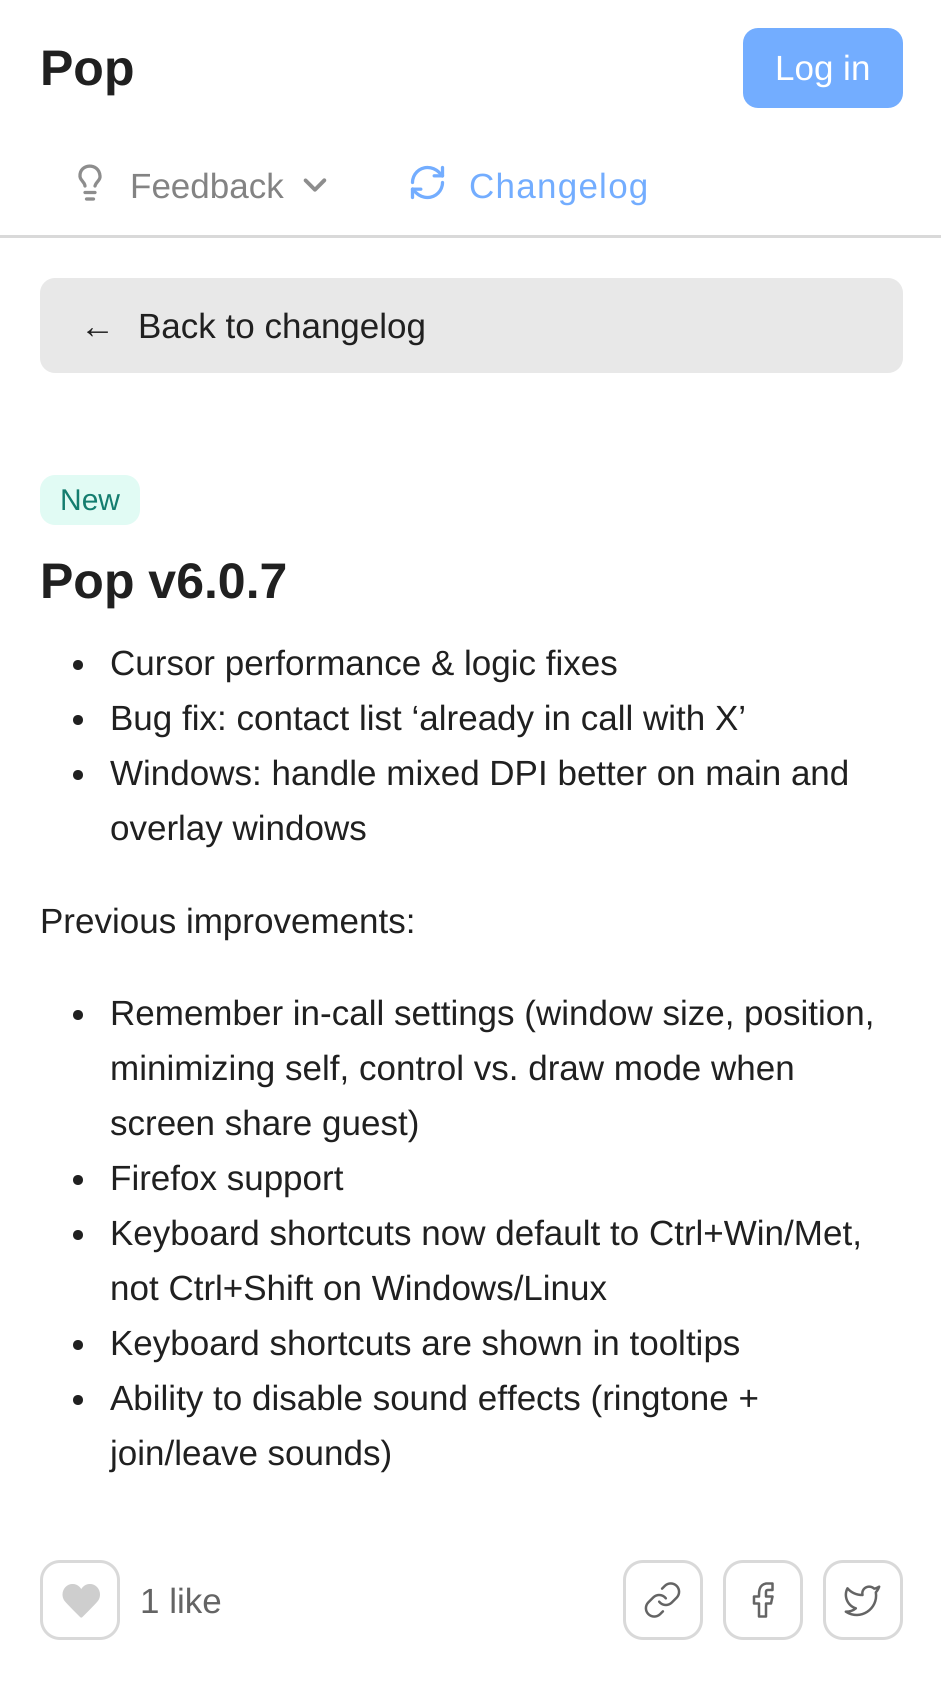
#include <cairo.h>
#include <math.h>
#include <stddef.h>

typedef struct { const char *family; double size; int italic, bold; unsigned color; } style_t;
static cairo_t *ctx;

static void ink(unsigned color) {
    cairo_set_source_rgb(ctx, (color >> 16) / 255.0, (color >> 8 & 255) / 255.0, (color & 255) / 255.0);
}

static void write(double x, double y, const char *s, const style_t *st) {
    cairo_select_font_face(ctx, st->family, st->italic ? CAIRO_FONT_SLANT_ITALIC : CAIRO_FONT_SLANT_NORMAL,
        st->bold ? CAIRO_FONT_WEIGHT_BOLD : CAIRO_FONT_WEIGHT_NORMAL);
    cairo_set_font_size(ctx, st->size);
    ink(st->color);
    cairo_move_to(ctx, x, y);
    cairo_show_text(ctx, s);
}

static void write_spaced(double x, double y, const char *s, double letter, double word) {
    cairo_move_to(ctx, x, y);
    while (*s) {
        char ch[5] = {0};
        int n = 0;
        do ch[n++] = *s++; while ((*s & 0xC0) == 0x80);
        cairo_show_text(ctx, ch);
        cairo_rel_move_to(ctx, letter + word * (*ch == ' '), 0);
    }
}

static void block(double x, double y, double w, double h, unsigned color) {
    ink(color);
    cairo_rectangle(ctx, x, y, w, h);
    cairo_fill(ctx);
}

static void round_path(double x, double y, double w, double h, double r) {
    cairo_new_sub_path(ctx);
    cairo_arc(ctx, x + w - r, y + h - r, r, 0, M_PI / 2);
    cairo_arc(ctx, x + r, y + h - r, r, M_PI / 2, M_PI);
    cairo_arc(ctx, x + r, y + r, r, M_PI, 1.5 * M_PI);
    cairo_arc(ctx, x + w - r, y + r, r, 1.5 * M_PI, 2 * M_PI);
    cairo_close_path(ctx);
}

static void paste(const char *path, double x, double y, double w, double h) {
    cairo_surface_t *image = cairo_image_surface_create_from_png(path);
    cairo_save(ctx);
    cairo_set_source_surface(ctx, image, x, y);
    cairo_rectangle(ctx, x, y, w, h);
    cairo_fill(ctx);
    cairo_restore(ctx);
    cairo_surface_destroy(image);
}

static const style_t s1 = {"Liberation Sans", 50, 0, 1, 0x202020};
static const style_t s2 = {"Liberation Sans", 35, 0, 0, 0xffffff};
static const style_t s3 = {"Liberation Sans", 35, 0, 0, 0x838383};
static const style_t s4 = {"Liberation Sans", 35, 0, 0, 0x202020};
static const style_t s5 = {"Liberation Sans", 30, 0, 0, 0x147d6f};
static const style_t s6 = {"Liberation Sans", 35, 0, 0, 0x646464};

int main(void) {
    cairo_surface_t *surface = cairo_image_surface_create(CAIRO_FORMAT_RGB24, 941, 1702);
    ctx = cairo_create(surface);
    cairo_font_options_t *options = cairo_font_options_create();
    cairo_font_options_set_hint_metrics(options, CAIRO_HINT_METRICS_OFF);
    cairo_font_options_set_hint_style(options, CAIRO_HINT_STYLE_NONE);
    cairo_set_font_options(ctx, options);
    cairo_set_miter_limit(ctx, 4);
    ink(0xffffff);
    cairo_paint(ctx);
    block(0, 235, 941, 3, 0xd9d9d9);
    write(40, 85, "Pop", &s1);
    ink(0x73adff);
    round_path(744.5, 29.5, 157, 77, 13.5);
    cairo_fill_preserve(ctx);
    cairo_set_line_width(ctx, 3);
    cairo_stroke(ctx);
    write(775, 80, "Log in", &s2);
    cairo_new_path(ctx);
    cairo_move_to(ctx, 95, 186);
    cairo_curve_to(ctx, 96, 182, 100.5, 180, 100, 176);
    cairo_curve_to(ctx, 99, 162, 79, 163.5, 80, 176.5);
    cairo_curve_to(ctx, 80.5, 180.5, 84.5, 182, 85, 186);
    cairo_move_to(ctx, 85, 192.5);
    cairo_line_to(ctx, 95, 192.5);
    cairo_move_to(ctx, 86.5, 199);
    cairo_line_to(ctx, 93.5, 199);
    ink(0x8d8d8d);
    cairo_set_line_width(ctx, 3.3);
    cairo_set_line_cap(ctx, CAIRO_LINE_CAP_ROUND);
    cairo_set_line_join(ctx, CAIRO_LINE_JOIN_ROUND);
    cairo_stroke(ctx);
    write(130, 198, "Feedback", &s3);
    paste("pic1.png", 303, 178, 24, 14);
    paste("pic2.png", 410, 165, 35, 35);
    ink(0x73adff);
    write_spaced(469, 198, "Changelog", 1.25, 0);
    ink(0xe8e8e8);
    round_path(40, 278, 863, 95, 15);
    cairo_fill(ctx);
    write(80, 338, "←", &s4);
    write(138, 338, "Back to changelog", &s4);
    ink(0xe1fbf4);
    round_path(40, 475, 100, 50, 15);
    cairo_fill(ctx);
    write(60, 510, "New", &s5);
    write(40, 598, "Pop v6.0.7", &s1);
    cairo_new_path(ctx);
    cairo_arc(ctx, 78, 665, 5, 0, 2 * M_PI);
    cairo_fill(ctx);
    write(110, 675, "Cursor performance & logic fixes", &s4);
    cairo_new_path(ctx);
    cairo_arc(ctx, 78, 720, 5, 0, 2 * M_PI);
    cairo_fill(ctx);
    write(110, 730, "Bug fix: contact list ‘already in call with X’", &s4);
    cairo_new_path(ctx);
    cairo_arc(ctx, 78, 775, 5, 0, 2 * M_PI);
    cairo_fill(ctx);
    write(110, 785, "Windows: handle mixed DPI better on main and", &s4);
    write(110, 840, "overlay windows", &s4);
    write(40, 933, "Previous improvements:", &s4);
    cairo_new_path(ctx);
    cairo_arc(ctx, 78, 1015, 5, 0, 2 * M_PI);
    cairo_fill(ctx);
    write(110, 1025, "Remember in-call settings (window size, position,", &s4);
    write(110, 1080, "minimizing self, control vs. draw mode when", &s4);
    write(110, 1135, "screen share guest)", &s4);
    cairo_new_path(ctx);
    cairo_arc(ctx, 78, 1180, 5, 0, 2 * M_PI);
    cairo_fill(ctx);
    write(110, 1190, "Firefox support", &s4);
    cairo_new_path(ctx);
    cairo_arc(ctx, 78, 1235, 5, 0, 2 * M_PI);
    cairo_fill(ctx);
    write(110, 1245, "Keyboard shortcuts now default to Ctrl+Win/Met,", &s4);
    write(110, 1300, "not Ctrl+Shift on Windows/Linux", &s4);
    cairo_new_path(ctx);
    cairo_arc(ctx, 78, 1345, 5, 0, 2 * M_PI);
    cairo_fill(ctx);
    write(110, 1355, "Keyboard shortcuts are shown in tooltips", &s4);
    cairo_new_path(ctx);
    cairo_arc(ctx, 78, 1400, 5, 0, 2 * M_PI);
    cairo_fill(ctx);
    write(110, 1410, "Ability to disable sound effects (ringtone +", &s4);
    write(110, 1465, "join/leave sounds)", &s4);
    round_path(41.5, 1561.5, 77, 77, 18.5);
    ink(0xd9d9d9);
    cairo_set_line_width(ctx, 3);
    cairo_set_line_cap(ctx, CAIRO_LINE_CAP_BUTT);
    cairo_set_line_join(ctx, CAIRO_LINE_JOIN_MITER);
    cairo_stroke(ctx);
    paste("pic3.png", 62, 1584, 38, 34);
    write(140, 1613, "1 like", &s6);
    round_path(624.5, 1561.5, 77, 77, 18.5);
    ink(0xd9d9d9);
    cairo_stroke(ctx);
    paste("pic4.png", 644, 1582, 37, 36);
    round_path(724.5, 1561.5, 77, 77, 18.5);
    cairo_stroke(ctx);
    cairo_new_path(ctx);
    cairo_move_to(ctx, 772.5, 1583.5);
    cairo_line_to(ctx, 766, 1583.5);
    cairo_curve_to(ctx, 759, 1585, 759, 1591, 759, 1596.5);
    cairo_line_to(ctx, 754, 1596.5);
    cairo_line_to(ctx, 754, 1603.5);
    cairo_line_to(ctx, 759, 1603.5);
    cairo_line_to(ctx, 759, 1616.5);
    cairo_line_to(ctx, 766, 1616.5);
    cairo_line_to(ctx, 766, 1603.5);
    cairo_line_to(ctx, 771, 1603.5);
    cairo_line_to(ctx, 772.5, 1596.5);
    cairo_line_to(ctx, 766, 1596.5);
    cairo_curve_to(ctx, 766, 1589, 765, 1590, 772.5, 1590);
    cairo_close_path(ctx);
    ink(0x646464);
    cairo_set_line_width(ctx, 2.5);
    cairo_set_line_cap(ctx, CAIRO_LINE_CAP_ROUND);
    cairo_set_line_join(ctx, CAIRO_LINE_JOIN_ROUND);
    cairo_stroke(ctx);
    round_path(824.5, 1561.5, 77, 77, 18.5);
    ink(0xd9d9d9);
    cairo_set_line_width(ctx, 3);
    cairo_set_line_cap(ctx, CAIRO_LINE_CAP_BUTT);
    cairo_set_line_join(ctx, CAIRO_LINE_JOIN_MITER);
    cairo_stroke(ctx);
    paste("pic5.png", 844, 1585, 37, 32);
    cairo_surface_write_to_png(surface, "screenshot.png");
    cairo_font_options_destroy(options);
    cairo_destroy(ctx);
    cairo_surface_destroy(surface);
    return 0;
}
